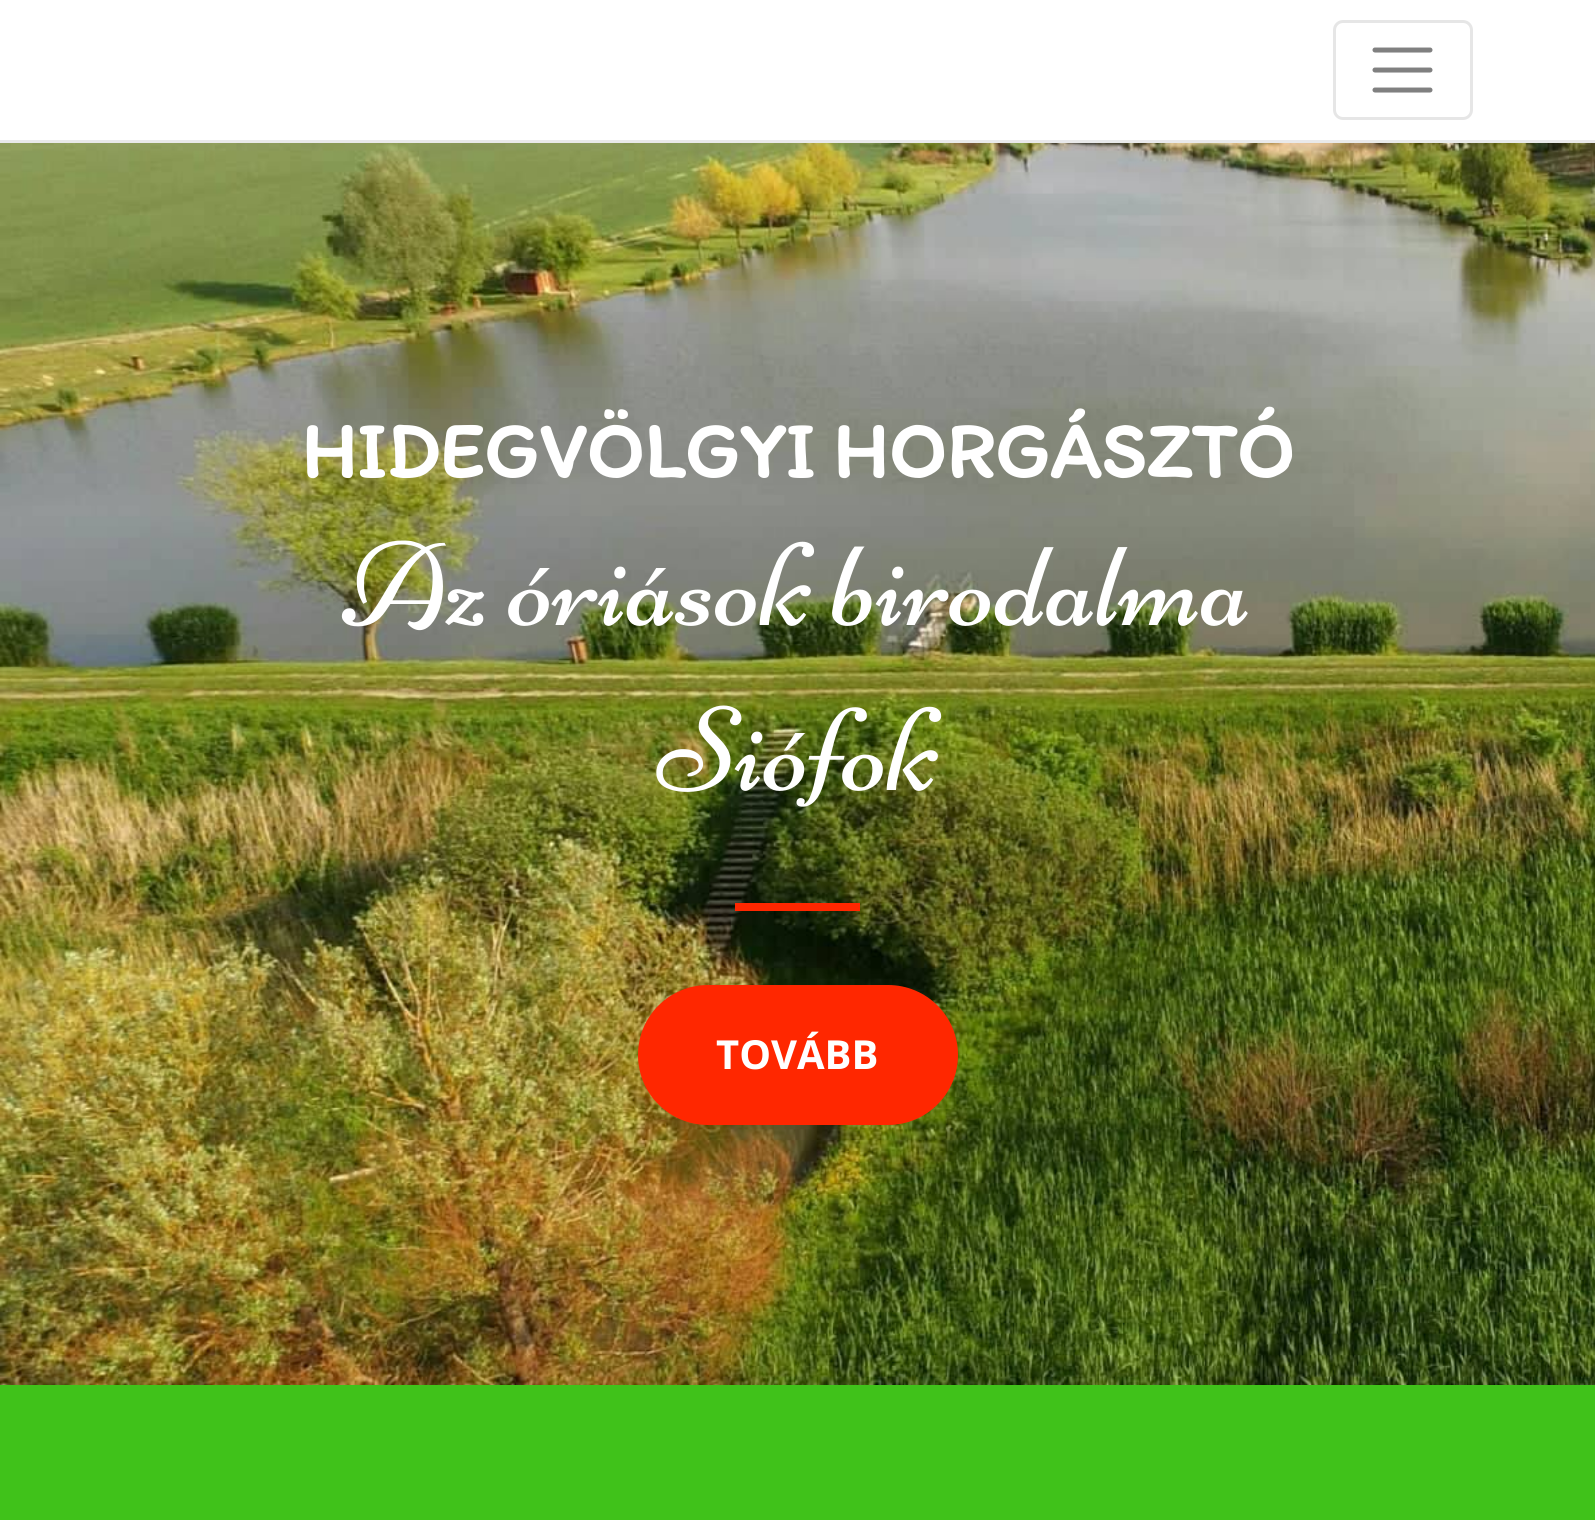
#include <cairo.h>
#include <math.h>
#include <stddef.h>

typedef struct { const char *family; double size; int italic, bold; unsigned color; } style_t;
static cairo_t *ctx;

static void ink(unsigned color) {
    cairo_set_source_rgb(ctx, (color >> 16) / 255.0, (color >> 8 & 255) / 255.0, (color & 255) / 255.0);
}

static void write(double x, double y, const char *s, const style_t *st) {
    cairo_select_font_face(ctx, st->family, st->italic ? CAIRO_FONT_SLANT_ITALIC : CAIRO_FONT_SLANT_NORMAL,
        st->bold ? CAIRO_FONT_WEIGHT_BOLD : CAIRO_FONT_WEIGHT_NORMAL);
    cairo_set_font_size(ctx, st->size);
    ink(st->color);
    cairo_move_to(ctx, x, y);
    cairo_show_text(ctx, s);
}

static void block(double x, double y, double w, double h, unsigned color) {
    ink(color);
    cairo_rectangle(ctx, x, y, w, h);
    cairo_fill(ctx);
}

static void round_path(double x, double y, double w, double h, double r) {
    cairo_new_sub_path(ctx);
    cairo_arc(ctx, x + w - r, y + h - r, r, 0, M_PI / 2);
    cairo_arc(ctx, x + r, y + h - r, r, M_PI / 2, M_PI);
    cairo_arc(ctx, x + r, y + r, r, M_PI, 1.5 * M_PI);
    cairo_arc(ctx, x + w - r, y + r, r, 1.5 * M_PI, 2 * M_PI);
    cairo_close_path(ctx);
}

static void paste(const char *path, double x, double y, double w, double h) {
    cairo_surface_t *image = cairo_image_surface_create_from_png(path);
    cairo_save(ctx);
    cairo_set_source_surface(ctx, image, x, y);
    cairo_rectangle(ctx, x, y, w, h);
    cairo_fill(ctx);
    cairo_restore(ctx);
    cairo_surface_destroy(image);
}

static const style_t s1 = {"Itim", 80, 0, 1, 0xffffff};
static const style_t s2 = {"Open Sans", 40, 0, 1, 0xffffff};

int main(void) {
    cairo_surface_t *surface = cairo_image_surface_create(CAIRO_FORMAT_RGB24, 1595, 1520);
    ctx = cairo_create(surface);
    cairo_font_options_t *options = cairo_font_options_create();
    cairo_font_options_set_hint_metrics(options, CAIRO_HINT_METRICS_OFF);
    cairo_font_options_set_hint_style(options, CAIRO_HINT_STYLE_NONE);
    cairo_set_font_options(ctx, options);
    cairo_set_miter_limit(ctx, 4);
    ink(0xffffff);
    cairo_paint(ctx);
    block(0, 140, 1595, 3, 0xe9e9ea);
    round_path(1334.5, 21.5, 137, 97, 8.5);
    ink(0xe6e6e6);
    cairo_set_line_width(ctx, 3);
    cairo_stroke(ctx);
    cairo_new_path(ctx);
    cairo_move_to(ctx, 1375, 50);
    cairo_line_to(ctx, 1430, 50);
    cairo_move_to(ctx, 1375, 70);
    cairo_line_to(ctx, 1430, 70);
    cairo_move_to(ctx, 1375, 90);
    cairo_line_to(ctx, 1430, 90);
    ink(0x808080);
    cairo_set_line_width(ctx, 5);
    cairo_set_line_cap(ctx, CAIRO_LINE_CAP_ROUND);
    cairo_stroke(ctx);
    paste("pic1.png", 0, 143, 1595, 1242);
    write(301, 478, "HIDEGVÖLGYI HORGÁSZTÓ", &s1);
    paste("pic2.png", 341, 540, 907, 91);
    paste("pic3.png", 656, 705, 286, 102);
    block(735, 903, 125, 8, 0xff2700);
    round_path(638, 985, 320, 140, 70);
    cairo_fill(ctx);
    write(716, 1069, "TOVÁBB", &s2);
    block(0, 1385, 1595, 135, 0x40c21a);
    cairo_surface_write_to_png(surface, "screenshot.png");
    cairo_font_options_destroy(options);
    cairo_destroy(ctx);
    cairo_surface_destroy(surface);
    return 0;
}
